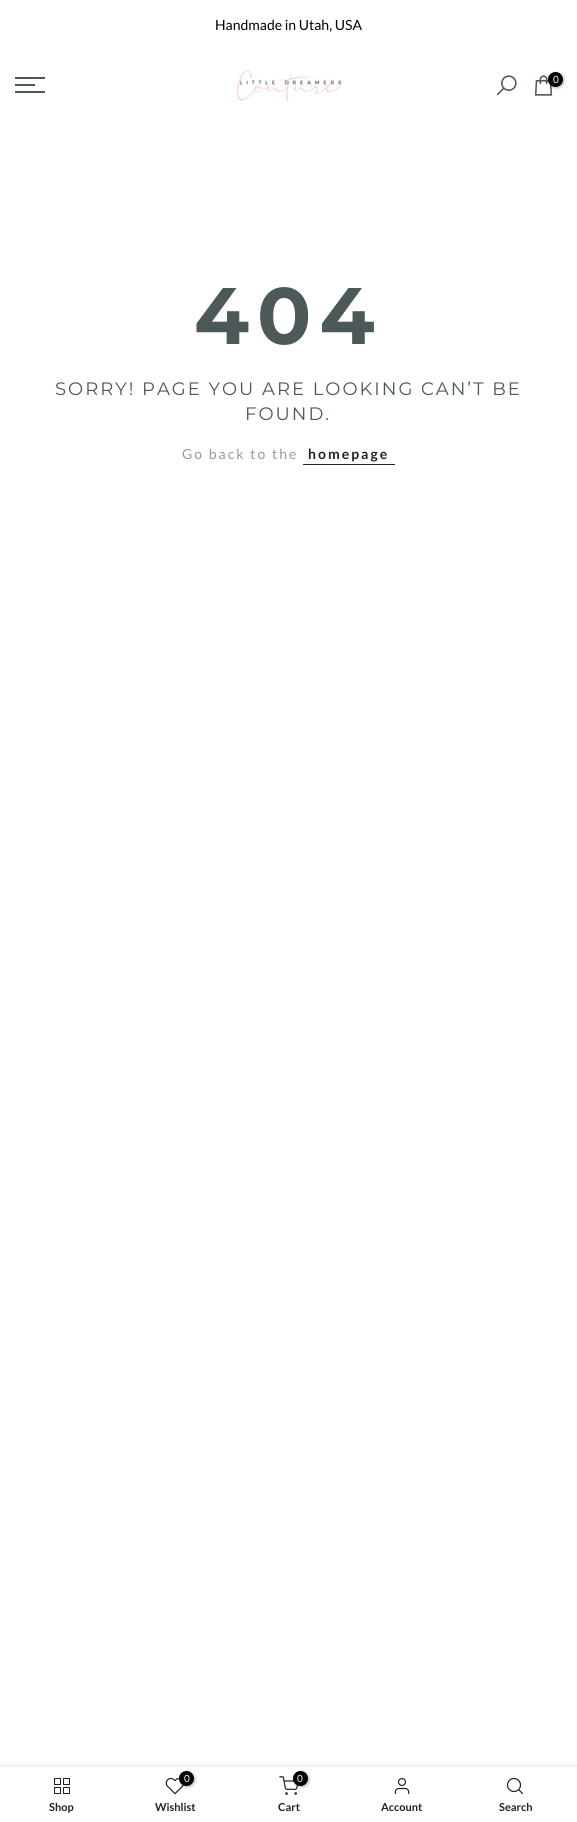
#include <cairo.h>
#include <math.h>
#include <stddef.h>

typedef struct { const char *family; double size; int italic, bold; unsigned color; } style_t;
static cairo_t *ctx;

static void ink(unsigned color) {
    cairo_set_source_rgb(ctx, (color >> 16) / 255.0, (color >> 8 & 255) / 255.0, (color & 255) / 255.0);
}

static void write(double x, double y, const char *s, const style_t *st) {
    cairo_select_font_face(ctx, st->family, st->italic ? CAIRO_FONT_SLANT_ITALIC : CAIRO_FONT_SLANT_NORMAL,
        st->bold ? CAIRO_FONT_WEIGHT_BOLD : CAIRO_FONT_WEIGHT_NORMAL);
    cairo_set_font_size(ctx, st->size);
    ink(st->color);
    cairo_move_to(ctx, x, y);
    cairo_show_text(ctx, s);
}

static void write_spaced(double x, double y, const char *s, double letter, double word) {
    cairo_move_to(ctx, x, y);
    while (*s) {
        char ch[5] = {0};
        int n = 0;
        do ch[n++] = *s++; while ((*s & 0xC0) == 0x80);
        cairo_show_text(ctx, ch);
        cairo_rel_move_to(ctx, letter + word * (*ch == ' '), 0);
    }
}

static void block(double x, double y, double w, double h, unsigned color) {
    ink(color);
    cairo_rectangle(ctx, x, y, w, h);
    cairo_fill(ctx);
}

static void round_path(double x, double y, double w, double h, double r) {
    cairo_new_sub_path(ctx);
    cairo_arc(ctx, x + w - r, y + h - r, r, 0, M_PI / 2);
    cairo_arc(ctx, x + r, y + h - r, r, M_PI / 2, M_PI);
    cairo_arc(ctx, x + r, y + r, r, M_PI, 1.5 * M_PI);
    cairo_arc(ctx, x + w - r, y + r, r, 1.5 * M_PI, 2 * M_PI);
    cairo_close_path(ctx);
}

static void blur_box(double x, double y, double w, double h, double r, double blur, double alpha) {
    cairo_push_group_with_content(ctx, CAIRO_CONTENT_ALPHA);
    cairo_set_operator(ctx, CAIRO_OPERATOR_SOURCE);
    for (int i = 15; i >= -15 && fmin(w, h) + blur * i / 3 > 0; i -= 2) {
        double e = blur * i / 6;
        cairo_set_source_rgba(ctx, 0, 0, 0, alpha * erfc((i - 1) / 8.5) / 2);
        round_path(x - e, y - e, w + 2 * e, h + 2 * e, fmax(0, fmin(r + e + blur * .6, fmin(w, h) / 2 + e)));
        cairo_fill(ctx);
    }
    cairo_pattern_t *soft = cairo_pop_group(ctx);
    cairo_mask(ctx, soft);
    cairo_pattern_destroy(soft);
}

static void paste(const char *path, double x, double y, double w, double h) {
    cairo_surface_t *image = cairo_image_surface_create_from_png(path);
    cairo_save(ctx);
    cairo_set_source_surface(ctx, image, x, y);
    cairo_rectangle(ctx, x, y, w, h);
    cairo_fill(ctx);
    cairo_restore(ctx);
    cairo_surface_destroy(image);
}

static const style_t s1 = {"Lato", 14, 0, 0, 0x000000};
static const style_t s2 = {"Lato", 10, 0, 0, 0xffffff};
static const style_t s3 = {"Lato", 11, 0, 1, 0x222222};

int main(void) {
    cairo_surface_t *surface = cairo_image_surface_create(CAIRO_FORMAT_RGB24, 577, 1822);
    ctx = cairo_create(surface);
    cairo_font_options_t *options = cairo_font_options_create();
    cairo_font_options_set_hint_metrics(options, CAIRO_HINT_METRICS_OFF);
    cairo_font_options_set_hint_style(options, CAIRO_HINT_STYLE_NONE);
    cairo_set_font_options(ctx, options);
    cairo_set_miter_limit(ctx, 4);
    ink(0xffffff);
    cairo_paint(ctx);
    write(215, 30, "Handmade in Utah, USA", &s1);
    block(15, 77, 30, 2, 0x4d5959);
    block(15, 84, 20, 2, 0x4d5959);
    block(15, 91, 30, 2, 0x4d5959);
    paste("pic1.png", 234, 70, 108, 32);
    paste("pic2.png", 496, 75, 21, 21);
    paste("pic3.png", 534, 75, 19, 21);
    ink(0x000000);
    blur_box(549, 73, 15, 15, 7.5, 1.5, 0.3);
    ink(0x000000);
    cairo_arc(ctx, 555.5, 79.5, 7.5, 0, 2 * M_PI);
    cairo_fill(ctx);
    write(553, 83, "0", &s2);
    cairo_select_font_face(ctx, "Montserrat", CAIRO_FONT_SLANT_NORMAL, CAIRO_FONT_WEIGHT_BOLD);
    cairo_set_font_size(ctx, 80);
    ink(0x4d5959);
    write_spaced(194, 344, "404", 8, 0);
    cairo_select_font_face(ctx, "Montserrat", CAIRO_FONT_SLANT_NORMAL, CAIRO_FONT_WEIGHT_NORMAL);
    cairo_set_font_size(ctx, 18);
    write_spaced(55, 395, "SORRY! PAGE YOU ARE LOOKING CAN’T BE", 2, 0);
    write_spaced(245, 420, "FOUND.", 2, 0);
    cairo_select_font_face(ctx, "Lato", CAIRO_FONT_SLANT_NORMAL, CAIRO_FONT_WEIGHT_NORMAL);
    cairo_set_font_size(ctx, 14);
    ink(0x999999);
    write_spaced(182, 459, "Go back to the", 2, 0);
    cairo_select_font_face(ctx, "Lato", CAIRO_FONT_SLANT_NORMAL, CAIRO_FONT_WEIGHT_BOLD);
    ink(0x222222);
    write_spaced(308, 459, "homepage", 2, 0);
    block(303, 464, 92, 1, 0x222222);
    cairo_save(ctx);
    cairo_rectangle(ctx, 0, 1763, 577, 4);
    cairo_clip(ctx);
    ink(0x000000);
    blur_box(0, 1767, 577, 55, 0, 4.5, 0.12);
    cairo_restore(ctx);
    paste("pic4.png", 54, 1778, 16, 16);
    write(49, 1811, "Shop", &s3);
    paste("pic5.png", 165, 1777, 19, 18);
    ink(0x000000);
    blur_box(180, 1772, 15, 15, 7.5, 1.5, 0.3);
    ink(0x000000);
    cairo_arc(ctx, 186.5, 1778.5, 7.5, 0, 2 * M_PI);
    cairo_fill(ctx);
    write(184, 1782, "0", &s2);
    write(155, 1811, "Wishlist", &s3);
    paste("pic6.png", 279, 1776, 19, 19);
    ink(0x000000);
    blur_box(294, 1772, 15, 15, 7.5, 1.5, 0.3);
    ink(0x000000);
    cairo_arc(ctx, 300.5, 1778.5, 7.5, 0, 2 * M_PI);
    cairo_fill(ctx);
    write(297, 1782, "0", &s2);
    write(278, 1811, "Cart", &s3);
    paste("pic7.png", 394, 1777, 16, 18);
    write(381, 1811, "Account", &s3);
    cairo_new_path(ctx);
    cairo_arc(ctx, 514, 1785, 6.5, 0, 2 * M_PI);
    cairo_set_line_width(ctx, 1.2);
    cairo_stroke(ctx);
    cairo_new_path(ctx);
    cairo_move_to(ctx, 522.5, 1793.5);
    cairo_line_to(ctx, 519, 1790);
    cairo_set_line_cap(ctx, CAIRO_LINE_CAP_ROUND);
    cairo_set_line_join(ctx, CAIRO_LINE_JOIN_ROUND);
    cairo_stroke(ctx);
    write(499, 1811, "Search", &s3);
    cairo_surface_write_to_png(surface, "screenshot.png");
    cairo_font_options_destroy(options);
    cairo_destroy(ctx);
    cairo_surface_destroy(surface);
    return 0;
}
